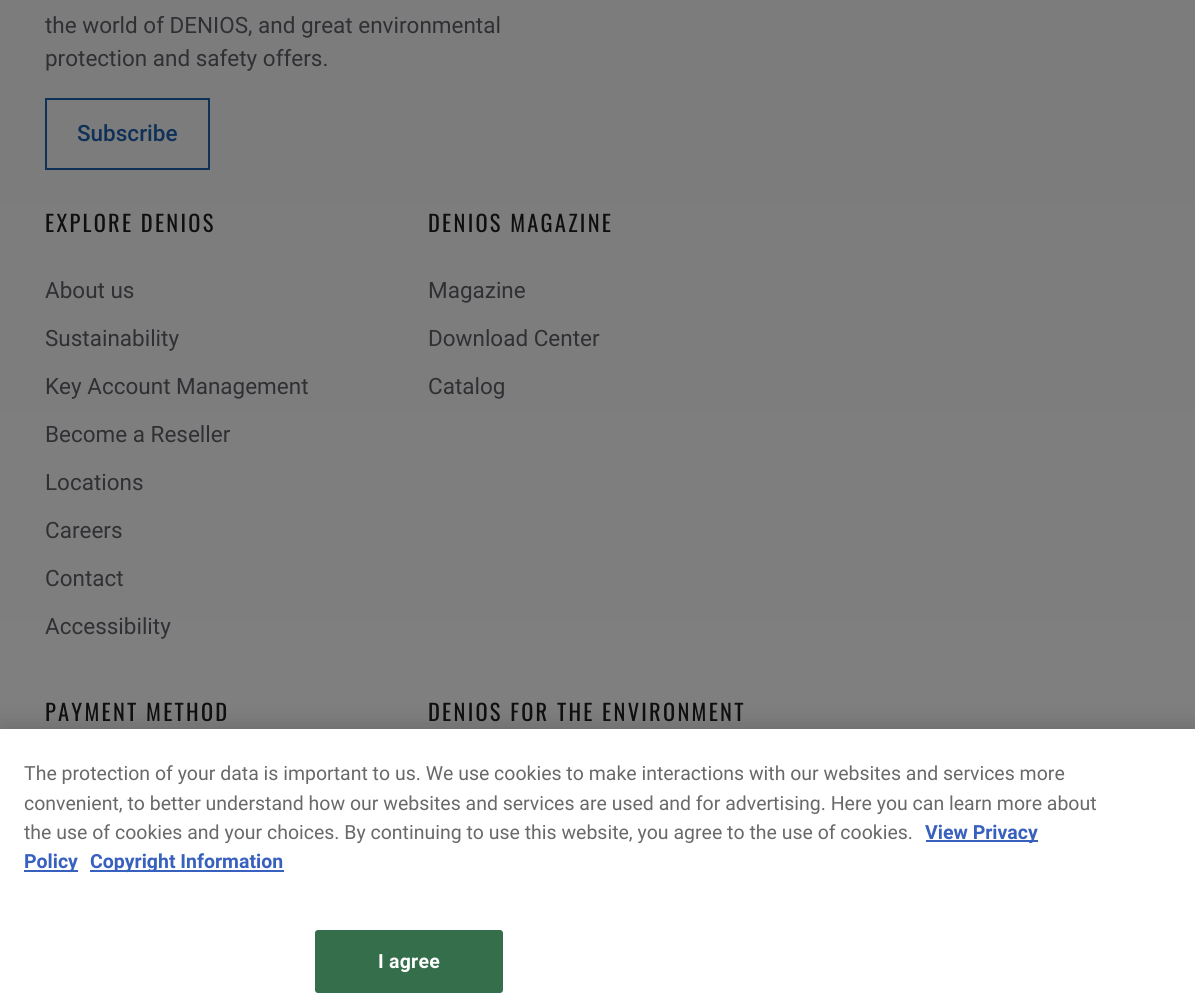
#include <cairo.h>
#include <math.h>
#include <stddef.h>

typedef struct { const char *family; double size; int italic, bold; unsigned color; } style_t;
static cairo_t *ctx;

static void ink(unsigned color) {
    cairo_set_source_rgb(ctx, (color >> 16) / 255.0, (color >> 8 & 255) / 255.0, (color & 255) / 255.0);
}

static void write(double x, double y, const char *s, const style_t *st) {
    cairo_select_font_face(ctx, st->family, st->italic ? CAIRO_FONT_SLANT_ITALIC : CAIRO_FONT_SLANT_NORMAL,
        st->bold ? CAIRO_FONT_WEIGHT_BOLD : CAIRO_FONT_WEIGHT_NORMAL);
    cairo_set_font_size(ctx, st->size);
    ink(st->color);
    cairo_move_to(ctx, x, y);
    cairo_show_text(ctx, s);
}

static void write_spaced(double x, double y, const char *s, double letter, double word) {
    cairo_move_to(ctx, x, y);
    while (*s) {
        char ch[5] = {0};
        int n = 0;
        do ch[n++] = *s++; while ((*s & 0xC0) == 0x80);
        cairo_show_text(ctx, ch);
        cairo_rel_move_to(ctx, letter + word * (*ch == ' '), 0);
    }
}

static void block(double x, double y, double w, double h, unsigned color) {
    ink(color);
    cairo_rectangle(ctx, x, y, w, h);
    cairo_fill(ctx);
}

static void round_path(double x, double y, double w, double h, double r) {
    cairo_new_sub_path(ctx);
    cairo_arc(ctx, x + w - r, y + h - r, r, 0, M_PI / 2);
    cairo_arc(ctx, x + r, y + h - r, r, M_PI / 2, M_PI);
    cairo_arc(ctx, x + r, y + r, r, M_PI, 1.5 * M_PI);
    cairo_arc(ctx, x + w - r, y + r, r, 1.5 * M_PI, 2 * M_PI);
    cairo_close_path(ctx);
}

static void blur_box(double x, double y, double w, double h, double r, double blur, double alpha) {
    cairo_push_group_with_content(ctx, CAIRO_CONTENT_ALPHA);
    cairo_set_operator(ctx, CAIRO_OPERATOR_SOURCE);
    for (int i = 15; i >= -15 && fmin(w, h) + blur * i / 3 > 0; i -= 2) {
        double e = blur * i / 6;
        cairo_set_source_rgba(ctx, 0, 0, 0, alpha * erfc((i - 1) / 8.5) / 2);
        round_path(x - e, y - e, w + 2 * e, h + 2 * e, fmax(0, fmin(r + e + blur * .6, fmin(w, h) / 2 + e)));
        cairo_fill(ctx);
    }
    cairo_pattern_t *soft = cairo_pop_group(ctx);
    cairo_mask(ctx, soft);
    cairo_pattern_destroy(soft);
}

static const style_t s1 = {"Roboto", 22.5, 0, 0, 0x303034};
static const style_t s2 = {"Roboto Medium", 22.5, 0, 0, 0x103157};
static const style_t s3 = {"Roboto", 19.5, 0, 0, 0x696969};
static const style_t s4 = {"Roboto", 19.5, 0, 1, 0x3860be};

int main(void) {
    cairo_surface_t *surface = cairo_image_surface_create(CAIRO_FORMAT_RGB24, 1195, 1008);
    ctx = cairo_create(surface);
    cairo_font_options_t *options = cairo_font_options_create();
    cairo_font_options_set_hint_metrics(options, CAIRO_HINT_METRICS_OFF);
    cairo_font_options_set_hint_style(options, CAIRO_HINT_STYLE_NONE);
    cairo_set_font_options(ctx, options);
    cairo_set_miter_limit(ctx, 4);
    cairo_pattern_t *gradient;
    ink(0xffffff);
    cairo_paint(ctx);
    gradient = cairo_pattern_create_linear(598, -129, 598, 935);
    cairo_pattern_add_color_stop_rgba(gradient, 0, 0.482, 0.482, 0.486, 1);
    cairo_pattern_add_color_stop_rgba(gradient, 1, 0.502, 0.502, 0.502, 1);
    cairo_set_source(ctx, gradient);
    cairo_pattern_destroy(gradient);
    cairo_rectangle(ctx, 0, 0, 1195, 729);
    cairo_fill(ctx);
    write(45, 33, "the world of DENIOS, and great environmental", &s1);
    write(45, 66, "protection and safety offers.", &s1);
    cairo_rectangle(ctx, 46, 99, 163, 70);
    ink(0x103157);
    cairo_stroke(ctx);
    write(77, 141, "Subscribe", &s2);
    cairo_select_font_face(ctx, "Oswald", CAIRO_FONT_SLANT_NORMAL, CAIRO_FONT_WEIGHT_NORMAL);
    ink(0x0f0f0f);
    write_spaced(45, 232, "EXPLORE DENIOS", 2.25, 0);
    write(45, 298, "About us", &s1);
    write(45, 346, "Sustainability", &s1);
    write(45, 394, "Key Account Management", &s1);
    write(45, 442, "Become a Reseller", &s1);
    write(45, 490, "Locations", &s1);
    write(45, 538, "Careers", &s1);
    write(45, 586, "Contact", &s1);
    write(45, 634, "Accessibility", &s1);
    cairo_select_font_face(ctx, "Oswald", CAIRO_FONT_SLANT_NORMAL, CAIRO_FONT_WEIGHT_NORMAL);
    ink(0x0f0f0f);
    write_spaced(428, 232, "DENIOS MAGAZINE", 2.25, 0);
    write(428, 298, "Magazine", &s1);
    write(428, 346, "Download Center", &s1);
    write(428, 394, "Catalog", &s1);
    cairo_select_font_face(ctx, "Oswald", CAIRO_FONT_SLANT_NORMAL, CAIRO_FONT_WEIGHT_NORMAL);
    ink(0x0f0f0f);
    write_spaced(45, 721, "PAYMENT METHOD", 2.25, 0);
    write_spaced(428, 721, "DENIOS FOR THE ENVIRONMENT", 2.25, 0);
    ink(0x000000);
    blur_box(0, 729, 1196, 279, 0, 13.5, 0.2);
    block(0, 729, 1195, 279, 0xffffff);
    write(24, 780, "The protection of your data is important to us. We use cookies to make interactions with our websites and services more", &s3);
    write(24, 810, "convenient, to better understand how our websites and services are used and for advertising. Here you can learn more about", &s3);
    write(24, 839, "the use of cookies and your choices. By continuing to use this website, you agree to the use of cookies.", &s3);
    block(926, 840, 112, 2, 0x3860be);
    write(925, 839, "View Privacy", &s4);
    block(24, 870, 54, 2, 0x3860be);
    write(24, 868, "Policy", &s4);
    block(90, 870, 194, 2, 0x3860be);
    write(90, 868, "Copyright Information", &s4);
    ink(0x346e4a);
    round_path(316, 931, 186, 61, 2);
    cairo_fill_preserve(ctx);
    cairo_stroke(ctx);
    ink(0xffffff);
    write_spaced(378, 968, "I agree", 0.25, 0);
    cairo_surface_write_to_png(surface, "screenshot.png");
    cairo_font_options_destroy(options);
    cairo_destroy(ctx);
    cairo_surface_destroy(surface);
    return 0;
}
